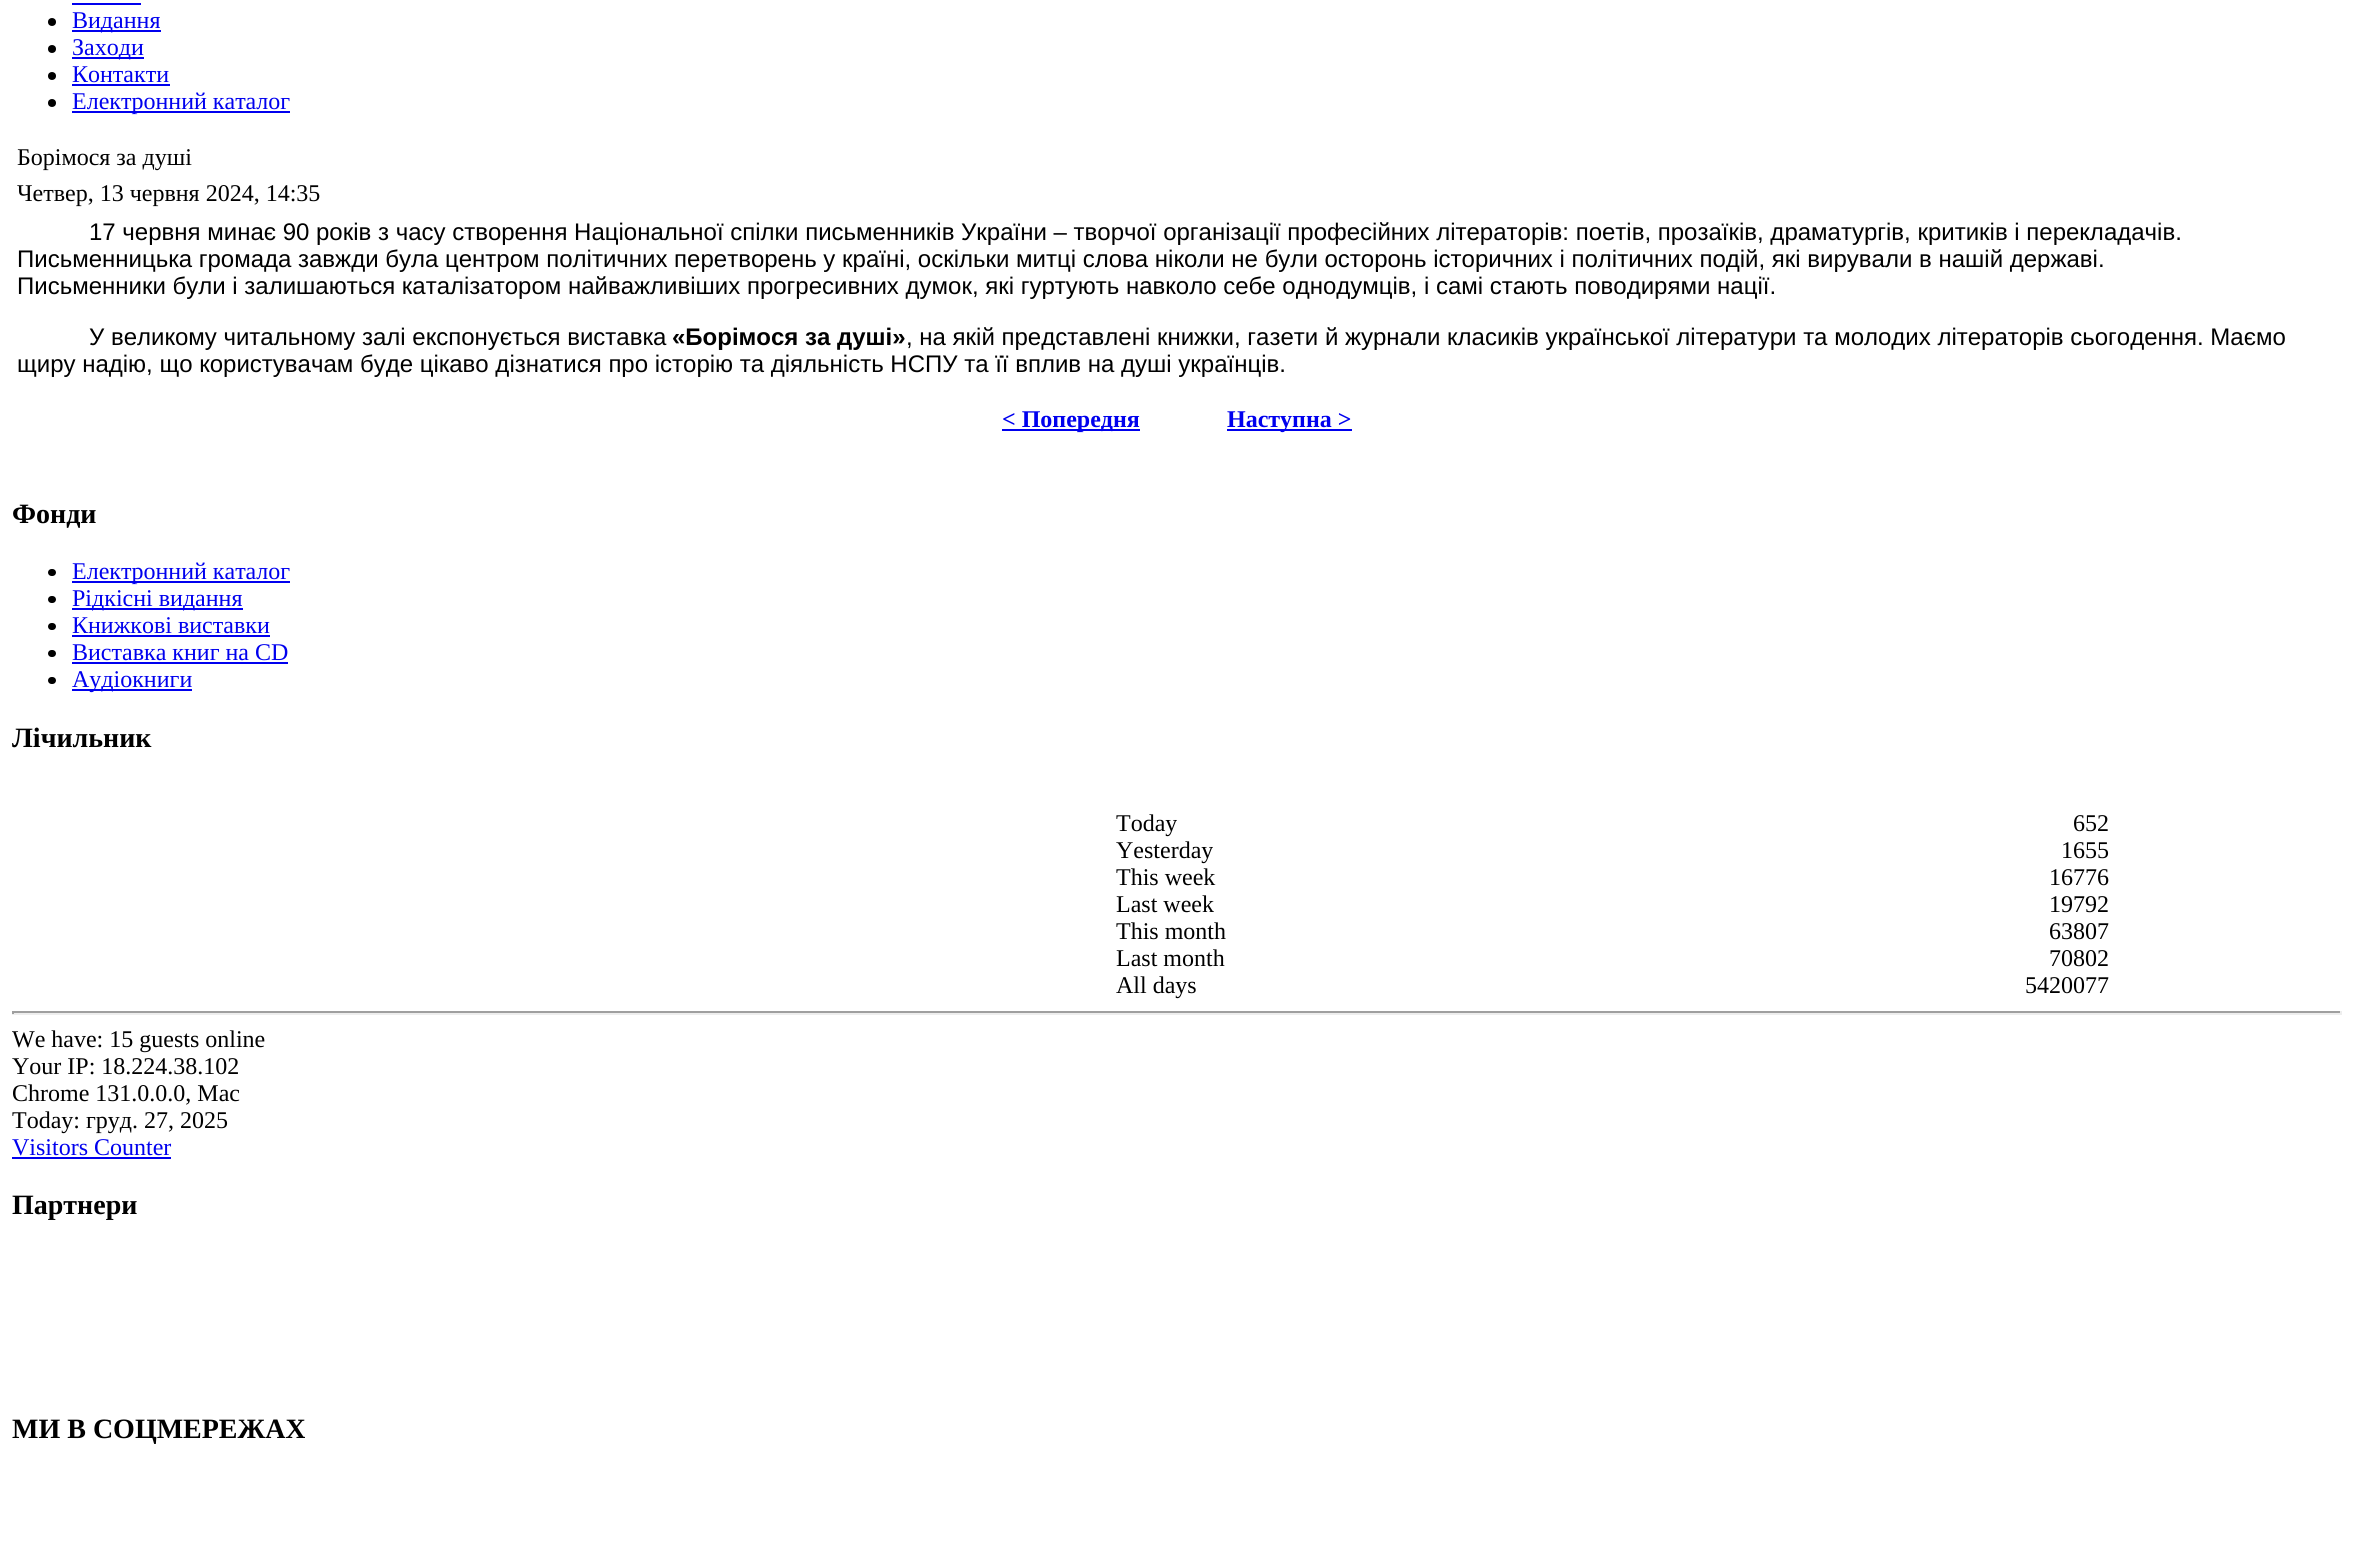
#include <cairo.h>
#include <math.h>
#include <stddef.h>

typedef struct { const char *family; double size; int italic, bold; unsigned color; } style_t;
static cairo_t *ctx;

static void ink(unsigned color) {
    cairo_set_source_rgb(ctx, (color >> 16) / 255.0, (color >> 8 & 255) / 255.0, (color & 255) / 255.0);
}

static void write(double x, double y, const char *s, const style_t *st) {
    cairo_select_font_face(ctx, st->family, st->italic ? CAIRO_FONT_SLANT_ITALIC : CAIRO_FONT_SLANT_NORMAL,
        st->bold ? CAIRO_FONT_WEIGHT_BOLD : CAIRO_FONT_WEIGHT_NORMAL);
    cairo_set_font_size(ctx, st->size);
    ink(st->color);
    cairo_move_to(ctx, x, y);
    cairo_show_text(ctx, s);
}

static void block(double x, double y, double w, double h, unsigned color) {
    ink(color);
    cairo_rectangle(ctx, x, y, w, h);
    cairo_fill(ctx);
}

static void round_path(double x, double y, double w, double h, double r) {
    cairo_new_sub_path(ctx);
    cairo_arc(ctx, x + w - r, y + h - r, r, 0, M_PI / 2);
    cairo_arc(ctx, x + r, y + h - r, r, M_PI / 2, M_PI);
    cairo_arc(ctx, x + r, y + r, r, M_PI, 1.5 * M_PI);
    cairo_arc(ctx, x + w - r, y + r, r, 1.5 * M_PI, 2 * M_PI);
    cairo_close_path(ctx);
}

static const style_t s1 = {"Liberation Serif", 24, 0, 0, 0x0000ee};
static const style_t s2 = {"Liberation Serif", 24, 0, 0, 0x000000};
static const style_t s3 = {"Liberation Sans", 24, 0, 0, 0x000000};
static const style_t s4 = {"Liberation Sans", 24, 0, 1, 0x000000};
static const style_t s5 = {"Liberation Serif", 24, 0, 1, 0x0000ee};
static const style_t s6 = {"Liberation Serif", 28, 0, 1, 0x000000};

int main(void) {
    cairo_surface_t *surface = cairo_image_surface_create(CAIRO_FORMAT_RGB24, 2353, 1567);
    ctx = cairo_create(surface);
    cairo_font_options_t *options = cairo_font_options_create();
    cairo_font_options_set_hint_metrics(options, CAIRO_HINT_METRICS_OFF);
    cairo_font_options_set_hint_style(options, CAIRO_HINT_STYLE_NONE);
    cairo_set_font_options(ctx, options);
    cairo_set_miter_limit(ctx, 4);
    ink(0xffffff);
    cairo_paint(ctx);
    block(72, 3, 69, 2, 0x0000ee);
    ink(0x000000);
    cairo_arc(ctx, 52, 22, 4, 0, 2 * M_PI);
    cairo_fill(ctx);
    block(72, 30, 89, 2, 0x0000ee);
    write(72, 28, "Видання", &s1);
    ink(0x000000);
    cairo_new_path(ctx);
    cairo_arc(ctx, 52, 49, 4, 0, 2 * M_PI);
    cairo_fill(ctx);
    block(72, 57, 72, 2, 0x0000ee);
    write(72, 55, "Заходи", &s1);
    ink(0x000000);
    cairo_new_path(ctx);
    cairo_arc(ctx, 52, 76, 4, 0, 2 * M_PI);
    cairo_fill(ctx);
    write(72, 82, "Контакти", &s1);
    block(72, 84, 98, 2, 0x0000ee);
    ink(0x000000);
    cairo_new_path(ctx);
    cairo_arc(ctx, 52, 103, 4, 0, 2 * M_PI);
    cairo_fill(ctx);
    block(72, 111, 218, 2, 0x0000ee);
    write(72, 109, "Електронний каталог", &s1);
    write(17, 165, "Борімося за душі", &s2);
    write(17, 201, "Четвер, 13 червня 2024, 14:35", &s2);
    write(89, 240, "17 червня минає 90 років з часу створення Національної спілки письменників України – творчої організації професійних літераторів: поетів, прозаїків, драматургів, критиків і перекладачів.", &s3);
    write(17, 267, "Письменницька громада завжди була центром політичних перетворень у країні, оскільки митці слова ніколи не були осторонь історичних і політичних подій, які вирували в нашій державі.", &s3);
    write(17, 294, "Письменники були і залишаються каталізатором найважливіших прогресивних думок, які гуртують навколо себе однодумців, і самі стають поводирями нації.", &s3);
    write(89, 345, "У великому читальному залі експонується виставка", &s3);
    write(672, 345, "«Борімося за душі»", &s4);
    write(906, 345, ", на якій представлені книжки, газети й журнали класиків української літератури та молодих літераторів сьогодення. Маємо", &s3);
    write(17, 372, "щиру надію, що користувачам буде цікаво дізнатися про історію та діяльність НСПУ та її вплив на душі українців.", &s3);
    block(1002, 429, 138, 2, 0x0000ee);
    write(1002, 427, "< Попередня", &s5);
    block(1227, 429, 125, 2, 0x0000ee);
    write(1227, 427, "Наступна >", &s5);
    write(12, 523, "Фонди", &s6);
    round_path(48, 569, 8, 7, 3.5);
    cairo_fill(ctx);
    block(72, 581, 218, 2, 0x0000ee);
    write(72, 579, "Електронний каталог", &s1);
    ink(0x000000);
    round_path(48, 596, 8, 7, 3.5);
    cairo_fill(ctx);
    block(72, 608, 171, 2, 0x0000ee);
    write(72, 606, "Рідкісні видання", &s1);
    ink(0x000000);
    round_path(48, 623, 8, 7, 3.5);
    cairo_fill(ctx);
    write(72, 633, "Книжкові виставки", &s1);
    block(72, 635, 198, 2, 0x0000ee);
    ink(0x000000);
    round_path(48, 650, 8, 7, 3.5);
    cairo_fill(ctx);
    write(72, 660, "Виставка книг на CD", &s1);
    block(72, 662, 216, 2, 0x0000ee);
    ink(0x000000);
    round_path(48, 677, 8, 7, 3.5);
    cairo_fill(ctx);
    block(72, 689, 120, 2, 0x0000ee);
    write(72, 687, "Аудіокниги", &s1);
    write(12, 747, "Лічильник", &s6);
    write(1116, 831, "Today", &s2);
    write(2073, 831, "652", &s2);
    write(1116, 858, "Yesterday", &s2);
    write(2061, 858, "1655", &s2);
    write(1116, 885, "This week", &s2);
    write(2049, 885, "16776", &s2);
    write(1116, 912, "Last week", &s2);
    write(2049, 912, "19792", &s2);
    write(1116, 939, "This month", &s2);
    write(2049, 939, "63807", &s2);
    write(1116, 966, "Last month", &s2);
    write(2049, 966, "70802", &s2);
    write(1116, 993, "All days", &s2);
    write(2025, 993, "5420077", &s2);
    block(12, 1011, 2330, 2, 0x9f9f9f);
    block(2340, 1011, 2, 3, 0xeeeeee);
    block(12, 1013, 2330, 2, 0xeeeeee);
    block(12, 1011, 2, 3, 0x9f9f9f);
    write(12, 1047, "We have: 15 guests online", &s2);
    write(12, 1074, "Your IP: 18.224.38.102", &s2);
    write(12, 1101, "Chrome 131.0.0.0, Mac", &s2);
    write(12, 1128, "Today: груд. 27, 2025", &s2);
    write(12, 1155, "Visitors Counter", &s1);
    block(12, 1157, 159, 2, 0x0000ee);
    write(12, 1214, "Партнери", &s6);
    write(12, 1438, "МИ В СОЦМЕРЕЖАХ", &s6);
    cairo_surface_write_to_png(surface, "screenshot.png");
    cairo_font_options_destroy(options);
    cairo_destroy(ctx);
    cairo_surface_destroy(surface);
    return 0;
}
